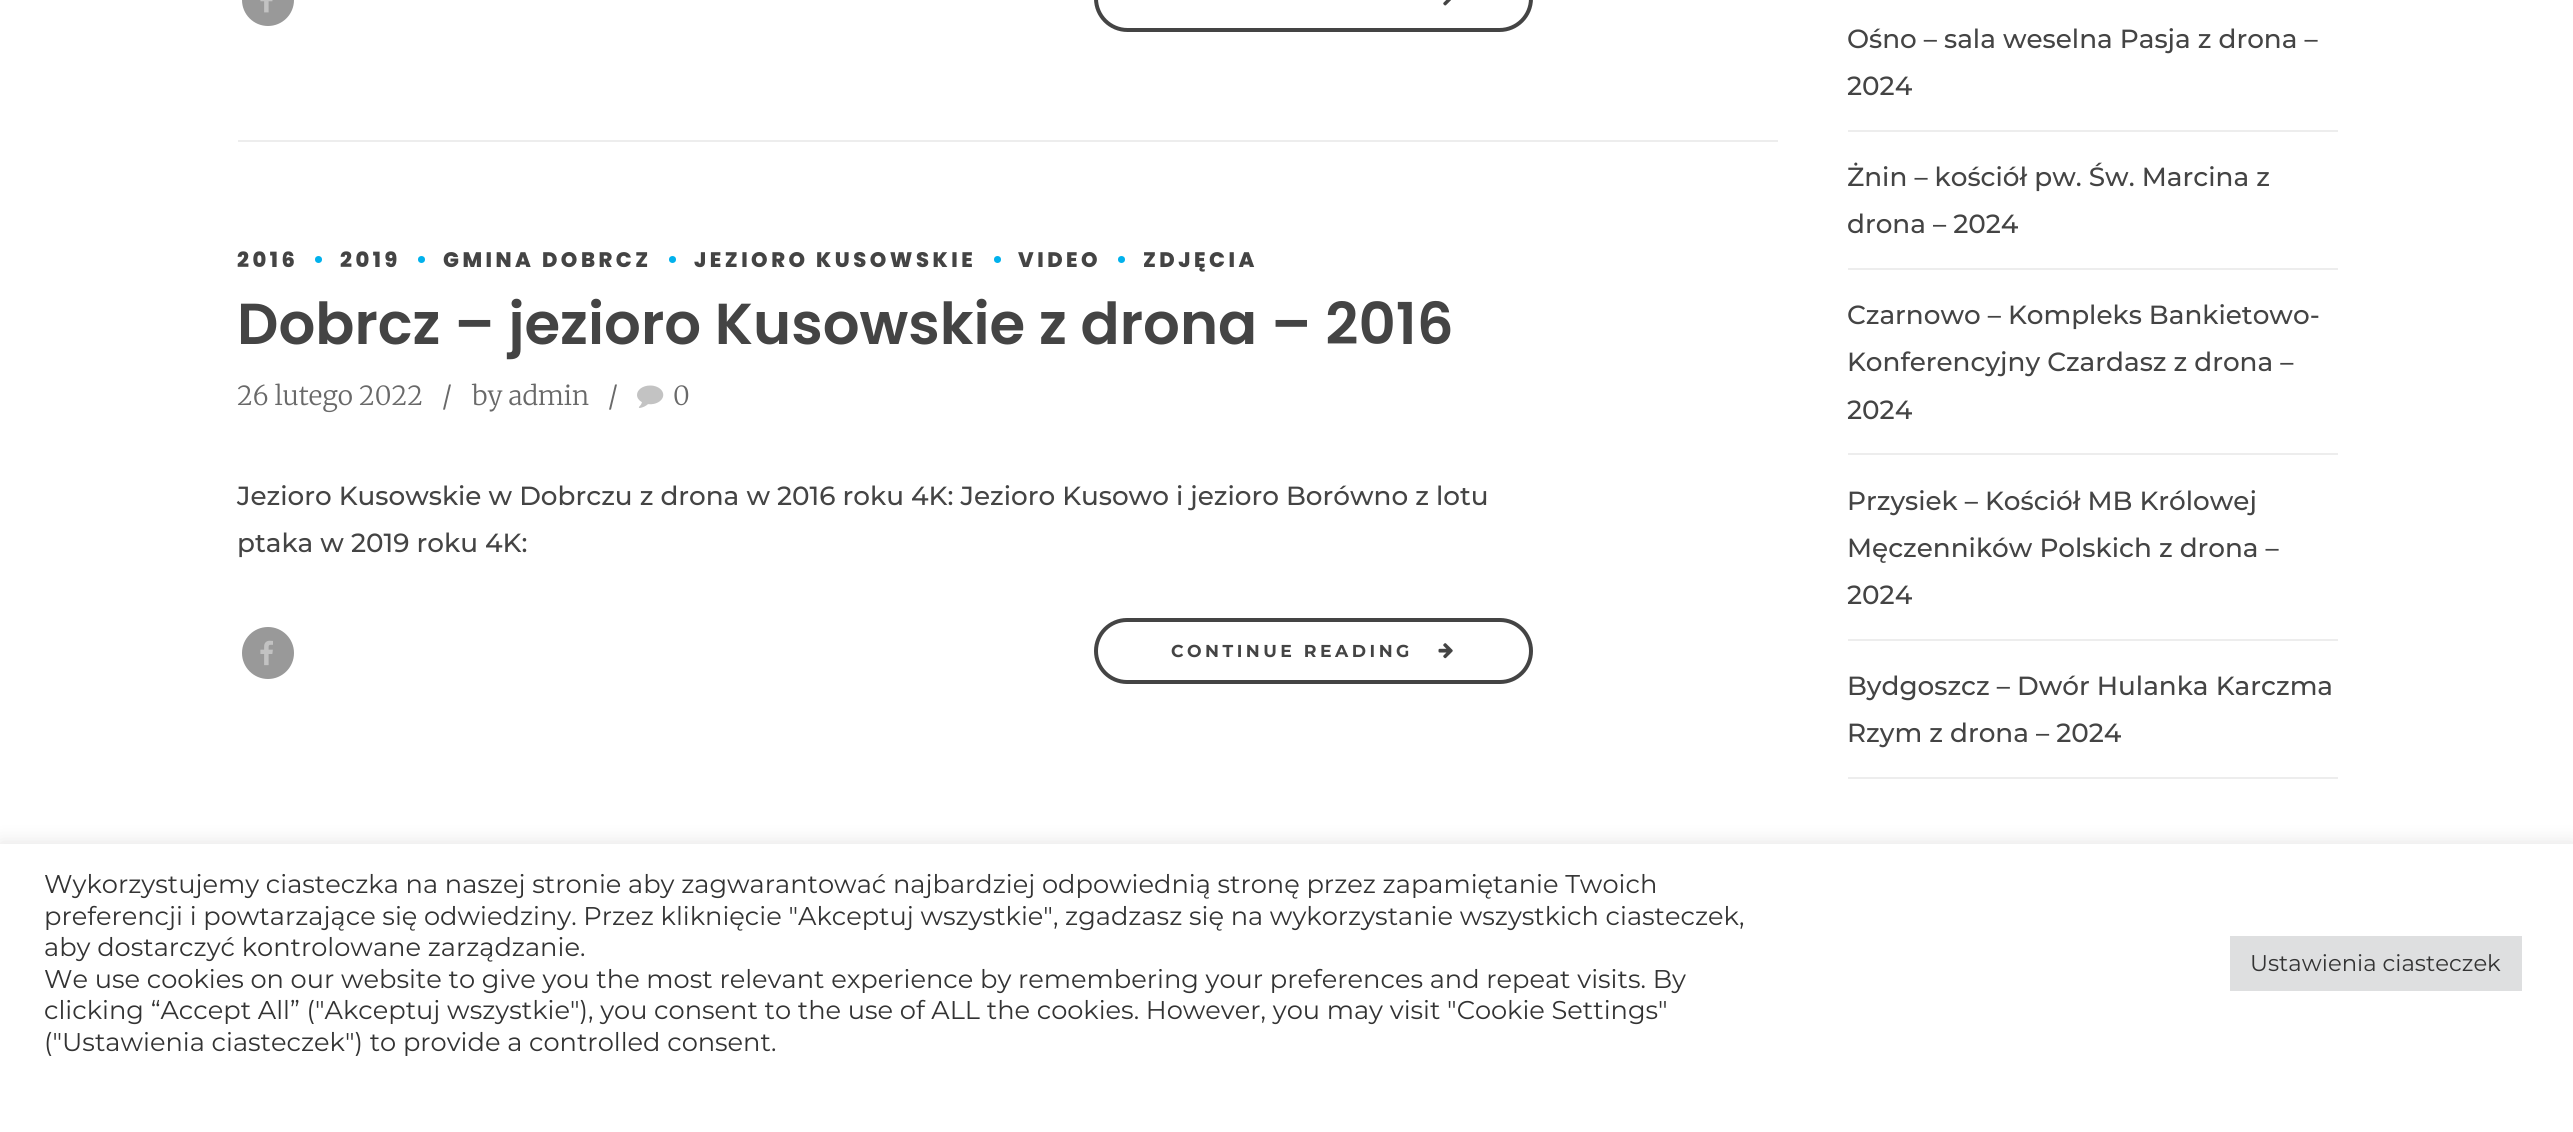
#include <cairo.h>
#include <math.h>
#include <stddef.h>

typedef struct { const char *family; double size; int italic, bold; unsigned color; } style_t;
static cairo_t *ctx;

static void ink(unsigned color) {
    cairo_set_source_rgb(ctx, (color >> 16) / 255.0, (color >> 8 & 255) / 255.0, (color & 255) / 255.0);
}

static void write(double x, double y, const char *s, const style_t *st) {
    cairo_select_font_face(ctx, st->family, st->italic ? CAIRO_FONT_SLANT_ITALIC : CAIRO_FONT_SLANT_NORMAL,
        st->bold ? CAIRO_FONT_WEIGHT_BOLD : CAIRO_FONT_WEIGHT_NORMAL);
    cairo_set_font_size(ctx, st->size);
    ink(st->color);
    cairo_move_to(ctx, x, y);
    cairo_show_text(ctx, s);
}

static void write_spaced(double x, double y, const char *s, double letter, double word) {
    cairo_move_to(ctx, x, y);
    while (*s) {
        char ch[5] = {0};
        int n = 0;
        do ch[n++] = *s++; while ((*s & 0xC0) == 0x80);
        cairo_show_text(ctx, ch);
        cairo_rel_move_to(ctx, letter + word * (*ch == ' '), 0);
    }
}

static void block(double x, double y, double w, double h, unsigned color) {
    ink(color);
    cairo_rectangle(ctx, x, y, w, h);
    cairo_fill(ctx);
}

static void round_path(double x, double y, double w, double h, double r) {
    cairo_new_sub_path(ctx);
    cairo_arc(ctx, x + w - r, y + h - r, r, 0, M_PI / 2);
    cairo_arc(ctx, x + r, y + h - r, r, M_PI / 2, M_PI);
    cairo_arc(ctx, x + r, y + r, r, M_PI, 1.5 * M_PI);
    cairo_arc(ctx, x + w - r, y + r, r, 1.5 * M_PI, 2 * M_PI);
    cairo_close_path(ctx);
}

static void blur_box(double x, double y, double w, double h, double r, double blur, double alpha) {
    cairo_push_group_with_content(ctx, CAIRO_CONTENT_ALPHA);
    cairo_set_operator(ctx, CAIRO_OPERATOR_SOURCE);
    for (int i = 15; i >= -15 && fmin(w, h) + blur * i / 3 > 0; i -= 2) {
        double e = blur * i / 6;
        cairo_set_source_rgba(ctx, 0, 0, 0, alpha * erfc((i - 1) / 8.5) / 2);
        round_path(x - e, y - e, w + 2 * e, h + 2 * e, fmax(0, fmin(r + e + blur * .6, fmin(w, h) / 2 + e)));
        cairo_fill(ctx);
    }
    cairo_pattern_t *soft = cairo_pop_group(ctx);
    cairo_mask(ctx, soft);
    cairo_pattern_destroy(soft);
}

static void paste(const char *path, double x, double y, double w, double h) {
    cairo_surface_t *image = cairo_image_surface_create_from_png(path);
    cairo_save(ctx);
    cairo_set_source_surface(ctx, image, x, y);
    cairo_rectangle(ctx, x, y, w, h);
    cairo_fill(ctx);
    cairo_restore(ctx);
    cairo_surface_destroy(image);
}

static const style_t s1 = {"Poppins SemiBold", 57.75, 0, 0, 0x444444};
static const style_t s2 = {"Merriweather Light", 26.25, 0, 0, 0x696969};
static const style_t s3 = {"Montserrat Medium", 26.25, 0, 0, 0x444444};
static const style_t s4 = {"Montserrat", 25.67, 0, 0, 0x333333};
static const style_t s5 = {"Montserrat", 22.75, 0, 0, 0x333333};

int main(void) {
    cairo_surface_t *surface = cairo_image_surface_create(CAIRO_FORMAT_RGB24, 2573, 1132);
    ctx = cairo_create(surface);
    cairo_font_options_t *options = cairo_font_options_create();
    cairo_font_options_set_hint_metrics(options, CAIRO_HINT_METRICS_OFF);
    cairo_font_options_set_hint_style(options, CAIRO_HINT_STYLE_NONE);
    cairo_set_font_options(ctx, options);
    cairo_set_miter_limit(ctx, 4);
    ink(0xffffff);
    cairo_paint(ctx);
    ink(0x999999);
    cairo_arc(ctx, 268, 0, 26, 0, 2 * M_PI);
    cairo_fill(ctx);
    paste("pic1.png", 260, 0, 13, 13);
    round_path(1096, -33, 435, 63, 31.5);
    ink(0x444444);
    cairo_set_line_width(ctx, 4);
    cairo_stroke(ctx);
    paste("pic2.png", 1443, 0, 8, 6);
    block(238, 140, 1540, 2, 0xededed);
    cairo_select_font_face(ctx, "Poppins ExtraBold", CAIRO_FONT_SLANT_NORMAL, CAIRO_FONT_WEIGHT_NORMAL);
    cairo_set_font_size(ctx, 21);
    ink(0x444444);
    write_spaced(237, 267, "2016", 3.5, 0);
    ink(0x01b1ec);
    cairo_new_path(ctx);
    cairo_arc(ctx, 318.5, 259.5, 3.5, 0, 2 * M_PI);
    cairo_fill(ctx);
    ink(0x444444);
    write_spaced(340, 267, "2019", 3.5, 0);
    ink(0x01b1ec);
    cairo_new_path(ctx);
    cairo_arc(ctx, 421.5, 259.5, 3.5, 0, 2 * M_PI);
    cairo_fill(ctx);
    ink(0x444444);
    write_spaced(443, 267, "GMINA DOBRCZ", 3.5, 0);
    ink(0x01b1ec);
    cairo_new_path(ctx);
    cairo_arc(ctx, 672.5, 259.5, 3.5, 0, 2 * M_PI);
    cairo_fill(ctx);
    ink(0x444444);
    write_spaced(694, 267, "JEZIORO KUSOWSKIE", 3.5, 0);
    ink(0x01b1ec);
    cairo_new_path(ctx);
    cairo_arc(ctx, 997.5, 259.5, 3.5, 0, 2 * M_PI);
    cairo_fill(ctx);
    ink(0x444444);
    write_spaced(1018, 267, "VIDEO", 3.5, 0);
    ink(0x01b1ec);
    cairo_new_path(ctx);
    cairo_arc(ctx, 1121.5, 259.5, 3.5, 0, 2 * M_PI);
    cairo_fill(ctx);
    ink(0x444444);
    write_spaced(1143, 267, "ZDJĘCIA", 3.5, 0);
    write(237, 344, "Dobrcz – jezioro Kusowskie z drona – 2016", &s1);
    write(237, 405, "26 lutego 2022", &s2);
    write(442, 405, "/", &s2);
    write(472, 405, "by admin", &s2);
    write(608, 405, "/", &s2);
    paste("pic3.png", 637, 385, 27, 23);
    write(673, 405, "0", &s2);
    write(237, 505, "Jezioro Kusowskie w Dobrczu z drona w 2016 roku 4K: Jezioro Kusowo i jezioro Borówno z lotu", &s3);
    write(237, 552, "ptaka w 2019 roku 4K:", &s3);
    ink(0x999999);
    cairo_new_path(ctx);
    cairo_arc(ctx, 268, 653, 26, 0, 2 * M_PI);
    cairo_fill(ctx);
    paste("pic4.png", 260, 640, 13, 26);
    round_path(1096, 620, 435, 62, 31);
    ink(0x444444);
    cairo_stroke(ctx);
    cairo_select_font_face(ctx, "Montserrat", CAIRO_FONT_SLANT_NORMAL, CAIRO_FONT_WEIGHT_BOLD);
    cairo_set_font_size(ctx, 17.25);
    write_spaced(1171, 657, "CONTINUE READING", 3.5, 0);
    paste("pic5.png", 1438, 643, 15, 16);
    block(1848, 130, 490, 2, 0xededed);
    write(1847, 48, "Ośno – sala weselna Pasja z drona –", &s3);
    write(1847, 95, "2024", &s3);
    block(1848, 268, 490, 2, 0xededed);
    write(1847, 186, "Żnin – kościół pw. Św. Marcina z", &s3);
    write(1847, 233, "drona – 2024", &s3);
    block(1848, 453, 490, 2, 0xededed);
    write(1847, 324, "Czarnowo – Kompleks Bankietowo-", &s3);
    write(1847, 371, "Konferencyjny Czardasz z drona –", &s3);
    write(1847, 419, "2024", &s3);
    block(1848, 639, 490, 2, 0xededed);
    write(1847, 510, "Przysiek – Kościół MB Królowej", &s3);
    write(1847, 557, "Męczenników Polskich z drona –", &s3);
    write(1847, 604, "2024", &s3);
    block(1848, 777, 490, 2, 0xededed);
    write(1847, 695, "Bydgoszcz – Dwór Hulanka Karczma", &s3);
    write(1847, 742, "Rzym z drona – 2024", &s3);
    ink(0xacabab);
    blur_box(0, 842, 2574, 289, 0, 9, 0.3);
    block(0, 844, 2573, 288, 0xffffff);
    write(44, 893, "Wykorzystujemy ciasteczka na naszej stronie aby zagwarantować najbardziej odpowiednią stronę przez zapamiętanie Twoich", &s4);
    write(44, 925, "preferencji i powtarzające się odwiedziny. Przez kliknięcie \"Akceptuj wszystkie\", zgadzasz się na wykorzystanie wszystkich ciasteczek,", &s4);
    write(44, 956, "aby dostarczyć kontrolowane zarządzanie.", &s4);
    write(44, 988, "We use cookies on our website to give you the most relevant experience by remembering your preferences and repeat visits. By", &s4);
    write(44, 1019, "clicking “Accept All” (\"Akceptuj wszystkie\"), you consent to the use of ALL the cookies. However, you may visit \"Cookie Settings\"", &s4);
    write(44, 1051, "(\"Ustawienia ciasteczek\") to provide a controlled consent.", &s4);
    block(2230, 936, 292, 55, 0xdedfe0);
    write(2250, 971, "Ustawienia ciasteczek", &s5);
    cairo_surface_write_to_png(surface, "screenshot.png");
    cairo_font_options_destroy(options);
    cairo_destroy(ctx);
    cairo_surface_destroy(surface);
    return 0;
}
